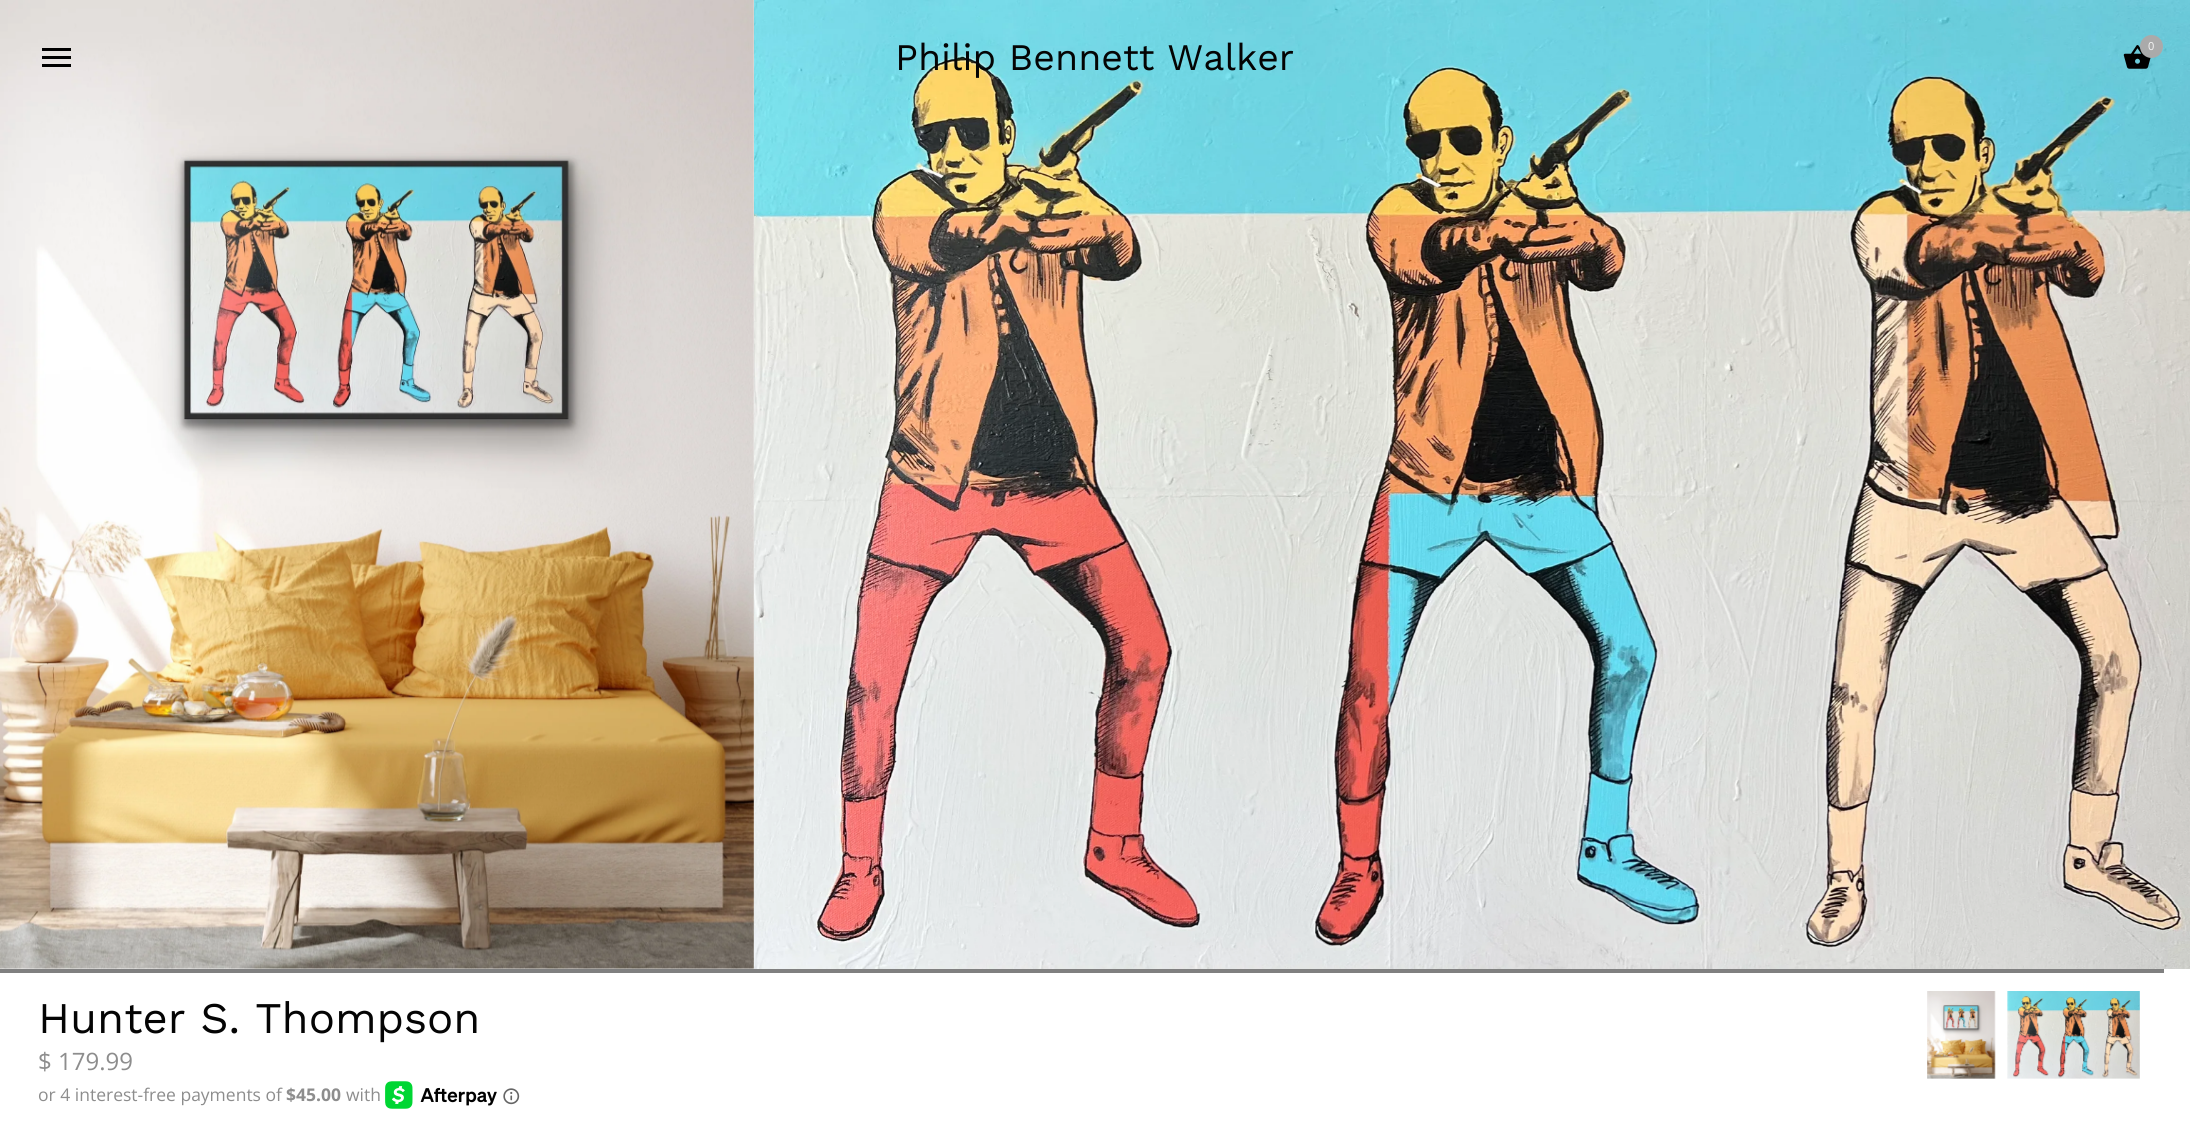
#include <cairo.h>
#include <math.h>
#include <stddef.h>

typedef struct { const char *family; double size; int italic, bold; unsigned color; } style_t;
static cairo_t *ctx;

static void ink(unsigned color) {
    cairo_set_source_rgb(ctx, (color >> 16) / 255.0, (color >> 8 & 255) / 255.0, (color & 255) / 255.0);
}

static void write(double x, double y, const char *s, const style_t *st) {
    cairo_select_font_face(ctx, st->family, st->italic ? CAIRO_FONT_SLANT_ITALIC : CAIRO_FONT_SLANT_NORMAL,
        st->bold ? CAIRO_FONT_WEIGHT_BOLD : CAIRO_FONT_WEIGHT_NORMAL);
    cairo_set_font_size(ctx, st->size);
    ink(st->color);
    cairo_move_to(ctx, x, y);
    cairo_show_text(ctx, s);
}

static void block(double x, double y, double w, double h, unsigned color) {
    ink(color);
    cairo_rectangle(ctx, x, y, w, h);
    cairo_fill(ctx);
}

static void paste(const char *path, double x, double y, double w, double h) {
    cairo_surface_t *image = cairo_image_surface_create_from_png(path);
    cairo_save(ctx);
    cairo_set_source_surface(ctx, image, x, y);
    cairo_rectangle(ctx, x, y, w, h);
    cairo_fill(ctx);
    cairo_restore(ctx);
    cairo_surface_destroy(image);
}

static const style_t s1 = {"Work Sans", 37.5, 0, 0, 0x040404};
static const style_t s2 = {"Open Sans", 11, 0, 0, 0xf7f7f7};
static const style_t s3 = {"Work Sans", 43.75, 0, 0, 0x040404};
static const style_t s4 = {"Open Sans", 24, 0, 0, 0x8d8d8d};
static const style_t s5 = {"Open Sans", 17.5, 0, 0, 0x8d8d8d};
static const style_t s6 = {"Open Sans", 17.5, 0, 1, 0x8d8d8d};

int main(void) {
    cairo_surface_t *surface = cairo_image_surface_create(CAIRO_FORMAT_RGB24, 2190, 1127);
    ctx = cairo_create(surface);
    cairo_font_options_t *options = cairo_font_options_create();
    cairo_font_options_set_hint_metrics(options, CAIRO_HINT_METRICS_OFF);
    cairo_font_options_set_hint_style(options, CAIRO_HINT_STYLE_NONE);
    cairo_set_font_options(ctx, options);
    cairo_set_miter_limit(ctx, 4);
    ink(0xffffff);
    cairo_paint(ctx);
    paste("pic2.png", 0, 0, 754, 969);
    block(42, 48, 29, 3, 0x000000);
    block(42, 56, 29, 3, 0x000000);
    block(42, 64, 29, 3, 0x000000);
    paste("pic3.png", 754, 0, 1436, 969);
    write(895, 70, "Philip Bennett Walker", &s1);
    paste("pic1.png", 2123, 45, 28, 24);
    ink(0xaaaaaa);
    cairo_arc(ctx, 2151.5, 46.5, 11.5, 0, 2 * M_PI);
    cairo_fill(ctx);
    write(2148, 50, "0", &s2);
    block(0, 969, 2164, 4, 0x808080);
    write(38, 1033, "Hunter S. Thompson", &s3);
    write(38, 1070, "$ 179.99", &s4);
    write(38, 1101, "or 4 interest-free payments of", &s5);
    write(286, 1101, "$45.00", &s6);
    write(346, 1101, "with", &s5);
    paste("pic4.png", 385, 1081, 112, 28);
    paste("pic5.png", 503, 1088, 17, 17);
    paste("pic6.png", 1927, 991, 69, 88);
    paste("pic7.png", 2007, 991, 133, 88);
    cairo_surface_write_to_png(surface, "screenshot.png");
    cairo_font_options_destroy(options);
    cairo_destroy(ctx);
    cairo_surface_destroy(surface);
    return 0;
}
